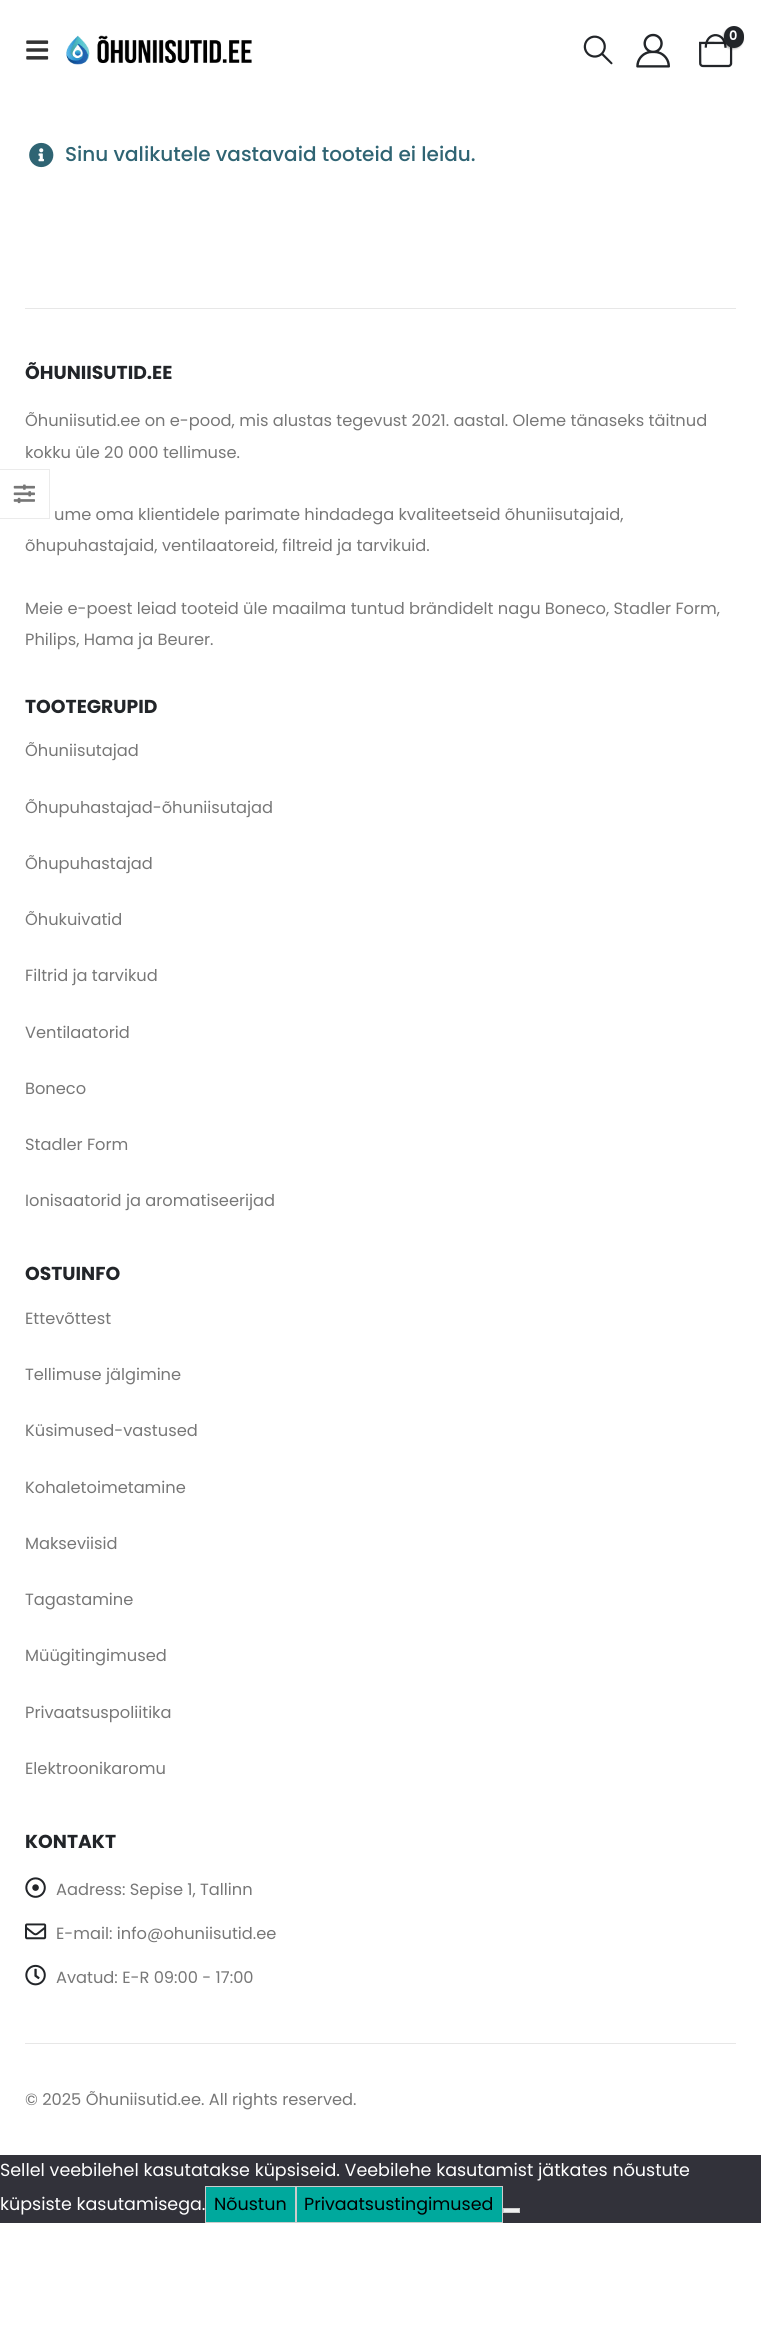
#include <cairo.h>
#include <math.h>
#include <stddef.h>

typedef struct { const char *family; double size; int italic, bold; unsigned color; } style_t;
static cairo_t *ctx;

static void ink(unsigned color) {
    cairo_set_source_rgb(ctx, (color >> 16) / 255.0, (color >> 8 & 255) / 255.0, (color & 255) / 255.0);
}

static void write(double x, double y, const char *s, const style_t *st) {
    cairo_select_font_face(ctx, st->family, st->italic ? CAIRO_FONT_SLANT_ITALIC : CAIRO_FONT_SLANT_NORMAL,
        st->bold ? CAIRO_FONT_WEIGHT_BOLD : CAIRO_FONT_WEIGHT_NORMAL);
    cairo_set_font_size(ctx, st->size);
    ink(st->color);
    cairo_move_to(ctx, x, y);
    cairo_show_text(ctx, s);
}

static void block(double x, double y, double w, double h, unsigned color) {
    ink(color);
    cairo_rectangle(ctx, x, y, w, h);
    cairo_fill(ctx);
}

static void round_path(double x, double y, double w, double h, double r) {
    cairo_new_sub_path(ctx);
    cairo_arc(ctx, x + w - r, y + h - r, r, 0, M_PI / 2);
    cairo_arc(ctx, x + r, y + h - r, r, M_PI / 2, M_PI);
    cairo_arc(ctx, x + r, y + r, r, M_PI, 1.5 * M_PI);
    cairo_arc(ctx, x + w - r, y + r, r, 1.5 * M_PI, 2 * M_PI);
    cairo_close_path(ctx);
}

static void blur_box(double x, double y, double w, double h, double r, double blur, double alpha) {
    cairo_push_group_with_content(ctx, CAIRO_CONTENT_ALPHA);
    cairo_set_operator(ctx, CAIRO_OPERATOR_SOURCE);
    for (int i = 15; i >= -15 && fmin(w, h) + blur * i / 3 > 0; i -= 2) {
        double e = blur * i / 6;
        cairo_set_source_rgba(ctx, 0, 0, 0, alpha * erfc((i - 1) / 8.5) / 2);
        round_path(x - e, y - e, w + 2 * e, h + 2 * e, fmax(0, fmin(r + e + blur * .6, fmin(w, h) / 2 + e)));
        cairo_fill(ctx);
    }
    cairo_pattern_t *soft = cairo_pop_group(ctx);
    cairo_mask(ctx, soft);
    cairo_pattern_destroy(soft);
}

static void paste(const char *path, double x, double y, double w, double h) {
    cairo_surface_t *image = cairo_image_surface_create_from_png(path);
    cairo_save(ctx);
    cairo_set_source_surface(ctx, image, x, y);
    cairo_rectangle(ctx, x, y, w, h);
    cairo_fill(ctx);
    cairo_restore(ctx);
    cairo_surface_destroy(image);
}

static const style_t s1 = {"Poppins SemiBold", 13, 0, 0, 0xffffff};
static const style_t s2 = {"Poppins Medium", 20, 0, 0, 0x2f6473};
static const style_t s3 = {"Poppins", 18.75, 0, 1, 0x222529};
static const style_t s4 = {"Poppins", 16.25, 0, 0, 0x777777};
static const style_t s5 = {"Poppins", 17.5, 0, 0, 0xffffff};
static const style_t s6 = {"Poppins", 17.5, 0, 0, 0x000000};

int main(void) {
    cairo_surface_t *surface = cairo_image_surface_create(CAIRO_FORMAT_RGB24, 761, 2343);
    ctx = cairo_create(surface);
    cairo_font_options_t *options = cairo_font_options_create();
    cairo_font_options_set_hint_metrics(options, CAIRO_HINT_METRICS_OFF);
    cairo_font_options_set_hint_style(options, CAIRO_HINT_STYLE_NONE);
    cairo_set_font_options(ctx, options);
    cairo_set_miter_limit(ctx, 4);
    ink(0xffffff);
    cairo_paint(ctx);
    paste("pic1.png", 26, 40, 23, 20);
    paste("pic2.png", 66, 35, 186, 30);
    paste("pic3.png", 583, 35, 30, 30);
    paste("pic4.png", 636, 33, 34, 35);
    paste("pic5.png", 699, 34, 34, 34);
    ink(0x000000);
    blur_box(723, 28, 20, 21, 10, 1, 0.3);
    ink(0x222529);
    round_path(724, 26, 20, 22, 10);
    cairo_fill(ctx);
    write(729, 40, "0", &s1);
    paste("pic6.png", 29, 142, 25, 26);
    write(65, 161, "Sinu valikutele vastavaid tooteid ei leidu.", &s2);
    ink(0xebebeb);
    cairo_new_path(ctx);
    cairo_move_to(ctx, 0, 469);
    cairo_line_to(ctx, 50, 469);
    cairo_line_to(ctx, 49, 470);
    cairo_line_to(ctx, 0, 470);
    cairo_close_path(ctx);
    cairo_fill(ctx);
    cairo_set_source_rgba(ctx, 0, 0, 0, 0.08);
    cairo_new_path(ctx);
    cairo_move_to(ctx, 50, 469);
    cairo_line_to(ctx, 50, 519);
    cairo_line_to(ctx, 49, 518);
    cairo_line_to(ctx, 49, 470);
    cairo_close_path(ctx);
    cairo_fill(ctx);
    cairo_new_path(ctx);
    cairo_move_to(ctx, 50, 519);
    cairo_line_to(ctx, 0, 519);
    cairo_line_to(ctx, 0, 518);
    cairo_line_to(ctx, 49, 518);
    cairo_close_path(ctx);
    cairo_fill(ctx);
    paste("pic7.png", 13, 484, 22, 20);
    block(25, 308, 711, 1, 0xe7e7e7);
    write(25, 379, "ÕHUNIISUTID.EE", &s3);
    write(25, 426, "Õhuniisutid.ee on e-pood, mis alustas tegevust 2021. aastal. Oleme tänaseks täitnud", &s4);
    write(25, 458, "kokku üle 20 000 tellimuse.", &s4);
    write(54, 520, "ume oma klientidele parimate hindadega kvaliteetseid õhuniisutajaid,", &s4);
    write(25, 551, "õhupuhastajaid, ventilaatoreid, filtreid ja tarvikuid.", &s4);
    write(25, 614, "Meie e-poest leiad tooteid üle maailma tuntud brändidelt nagu Boneco, Stadler Form,", &s4);
    write(25, 645, "Philips, Hama ja Beurer.", &s4);
    write(25, 713, "TOOTEGRUPID", &s3);
    write(25, 756, "Õhuniisutajad", &s4);
    write(25, 813, "Õhupuhastajad-õhuniisutajad", &s4);
    write(25, 869, "Õhupuhastajad", &s4);
    write(25, 925, "Õhukuivatid", &s4);
    write(25, 981, "Filtrid ja tarvikud", &s4);
    write(25, 1038, "Ventilaatorid", &s4);
    write(25, 1094, "Boneco", &s4);
    write(25, 1150, "Stadler Form", &s4);
    write(25, 1206, "Ionisaatorid ja aromatiseerijad", &s4);
    write(25, 1280, "OSTUINFO", &s3);
    write(25, 1324, "Ettevõttest", &s4);
    write(25, 1380, "Tellimuse jälgimine", &s4);
    write(25, 1436, "Küsimused-vastused", &s4);
    write(25, 1493, "Kohaletoimetamine", &s4);
    write(25, 1549, "Makseviisid", &s4);
    write(25, 1605, "Tagastamine", &s4);
    write(25, 1661, "Müügitingimused", &s4);
    write(25, 1718, "Privaatsuspoliitika", &s4);
    write(25, 1774, "Elektroonikaromu", &s4);
    write(25, 1848, "KONTAKT", &s3);
    paste("pic8.png", 25, 1877, 21, 21);
    write(56, 1895, "Aadress: Sepise 1, Tallinn", &s4);
    paste("pic9.png", 25, 1923, 22, 17);
    write(56, 1939, "E-mail: info@ohuniisutid.ee", &s4);
    paste("pic10.png", 25, 1964, 21, 22);
    write(56, 1983, "Avatud: E-R 09:00 - 17:00", &s4);
    block(25, 2043, 711, 1, 0xe7e7e7);
    write(25, 2105, "© 2025 Õhuniisutid.ee. All rights reserved.", &s4);
    block(0, 2155, 761, 68, 0x32323a);
    write(0, 2176, "Sellel veebilehel kasutatakse küpsiseid. Veebilehe kasutamist jätkates nõustute", &s5);
    write(0, 2210, "küpsiste kasutamisega.", &s5);
    ink(0x00a99d);
    cairo_rectangle(ctx, 205.5, 2186.5, 90, 36);
    cairo_fill_preserve(ctx);
    ink(0xcccccc);
    cairo_set_line_width(ctx, 1);
    cairo_stroke(ctx);
    write(214, 2210, "Nõustun", &s6);
    ink(0x00a99d);
    cairo_rectangle(ctx, 296.5, 2186.5, 206, 36);
    cairo_fill_preserve(ctx);
    ink(0xcccccc);
    cairo_stroke(ctx);
    write(304, 2210, "Privaatsustingimused", &s6);
    ink(0xefefef);
    cairo_rectangle(ctx, 503.5, 2208.5, 16, 4);
    cairo_fill_preserve(ctx);
    ink(0xcccccc);
    cairo_stroke(ctx);
    cairo_surface_write_to_png(surface, "screenshot.png");
    cairo_font_options_destroy(options);
    cairo_destroy(ctx);
    cairo_surface_destroy(surface);
    return 0;
}
